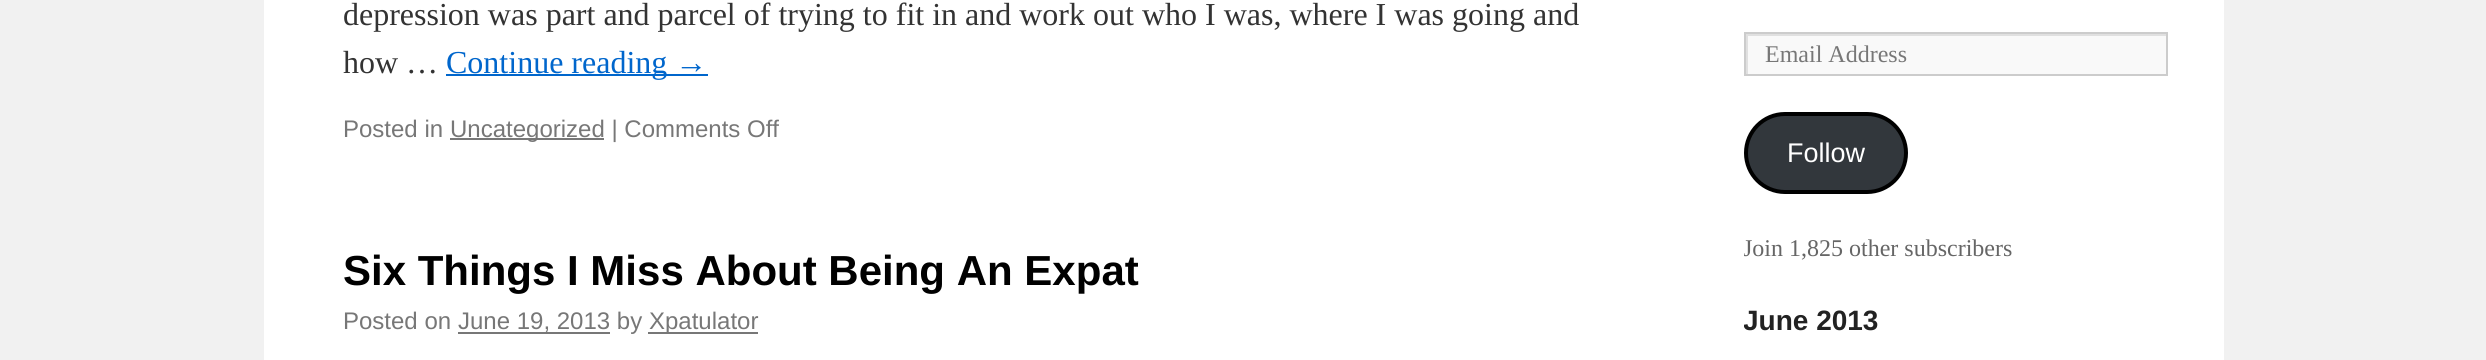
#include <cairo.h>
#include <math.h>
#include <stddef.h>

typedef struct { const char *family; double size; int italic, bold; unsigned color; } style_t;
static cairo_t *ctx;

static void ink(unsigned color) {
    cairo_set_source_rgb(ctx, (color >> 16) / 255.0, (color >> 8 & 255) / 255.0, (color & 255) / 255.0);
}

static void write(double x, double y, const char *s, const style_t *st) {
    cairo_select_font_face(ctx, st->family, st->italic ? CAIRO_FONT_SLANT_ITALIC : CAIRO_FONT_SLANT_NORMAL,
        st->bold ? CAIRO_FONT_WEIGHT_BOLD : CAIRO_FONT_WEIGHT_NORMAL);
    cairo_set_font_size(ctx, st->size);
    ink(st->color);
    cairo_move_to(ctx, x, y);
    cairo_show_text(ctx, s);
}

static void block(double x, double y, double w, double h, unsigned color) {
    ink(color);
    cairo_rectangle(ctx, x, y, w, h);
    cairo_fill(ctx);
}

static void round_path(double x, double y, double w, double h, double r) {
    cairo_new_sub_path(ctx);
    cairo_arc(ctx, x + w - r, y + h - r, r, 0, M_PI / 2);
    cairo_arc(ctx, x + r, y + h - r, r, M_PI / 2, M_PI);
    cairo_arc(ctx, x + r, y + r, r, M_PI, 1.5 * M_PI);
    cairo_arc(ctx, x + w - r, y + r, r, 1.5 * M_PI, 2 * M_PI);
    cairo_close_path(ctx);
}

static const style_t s1 = {"Liberation Serif", 32, 0, 0, 0x333333};
static const style_t s2 = {"Liberation Serif", 32, 0, 0, 0x0066cc};
static const style_t s3 = {"Liberation Sans", 24, 0, 0, 0x777777};
static const style_t s4 = {"Liberation Sans", 42, 0, 1, 0x000000};
static const style_t s5 = {"Liberation Serif", 24, 0, 0, 0x777777};
static const style_t s6 = {"Liberation Sans", 27, 0, 0, 0xffffff};
static const style_t s7 = {"Liberation Serif", 24, 0, 0, 0x666666};
static const style_t s8 = {"Liberation Sans", 28, 0, 1, 0x222222};

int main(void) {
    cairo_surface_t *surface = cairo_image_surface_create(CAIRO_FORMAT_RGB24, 2486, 360);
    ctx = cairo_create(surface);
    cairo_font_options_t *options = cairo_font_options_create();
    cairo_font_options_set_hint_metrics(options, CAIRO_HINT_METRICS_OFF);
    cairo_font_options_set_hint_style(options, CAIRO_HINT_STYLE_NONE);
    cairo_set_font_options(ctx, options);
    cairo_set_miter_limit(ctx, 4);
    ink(0xf1f1f1);
    cairo_paint(ctx);
    block(264, 0, 1960, 360, 0xffffff);
    write(343, 25, "depression was part and parcel of trying to fit in and work out who I was, where I was going and", &s1);
    write(343, 73, "how …", &s1);
    block(446, 74, 262, 2, 0x0066cc);
    write(446, 73, "Continue reading →", &s2);
    write(343, 137, "Posted in", &s3);
    block(450, 138, 154, 2, 0x777777);
    write(450, 137, "Uncategorized | Comments Off", &s3);
    write(343, 285, "Six Things I Miss About Being An Expat", &s4);
    write(343, 329, "Posted on", &s3);
    block(458, 332, 152, 2, 0x777777);
    write(458, 329, "June 19, 2013 by", &s3);
    block(648, 332, 110, 2, 0x777777);
    write(649, 329, "Xpatulator", &s3);
    block(1748, 36, 418, 38, 0xf9f9f9);
    cairo_save(ctx);
    cairo_rectangle(ctx, 1746, 34, 420, 40);
    cairo_clip(ctx);
    ink(0xe0e0e0);
    cairo_set_fill_rule(ctx, CAIRO_FILL_RULE_EVEN_ODD);
    cairo_new_path(ctx);
    cairo_move_to(ctx, 1548, -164);
    cairo_line_to(ctx, 2364, -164);
    cairo_line_to(ctx, 2364, 272);
    cairo_line_to(ctx, 1548, 272);
    cairo_close_path(ctx);
    cairo_move_to(ctx, 1748, 36);
    cairo_line_to(ctx, 2168, 36);
    cairo_line_to(ctx, 2168, 76);
    cairo_line_to(ctx, 1748, 76);
    cairo_close_path(ctx);
    cairo_fill(ctx);
    cairo_restore(ctx);
    cairo_rectangle(ctx, 1745, 33, 422, 42);
    ink(0xcccccc);
    cairo_stroke(ctx);
    write(1765, 62, "Email Address", &s5);
    ink(0x32373c);
    round_path(1746, 114, 160, 78, 39);
    cairo_fill_preserve(ctx);
    ink(0x000000);
    cairo_set_line_width(ctx, 4);
    cairo_stroke(ctx);
    write(1787, 162, "Follow", &s6);
    cairo_save(ctx);
    cairo_rectangle(ctx, 1744, 0, 440, 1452);
    cairo_clip(ctx);
    write(1743, 256, "Join 1,825 other subscribers", &s7);
    write(1743, 330, "June 2013", &s8);
    cairo_restore(ctx);
    cairo_surface_write_to_png(surface, "screenshot.png");
    cairo_font_options_destroy(options);
    cairo_destroy(ctx);
    cairo_surface_destroy(surface);
    return 0;
}
